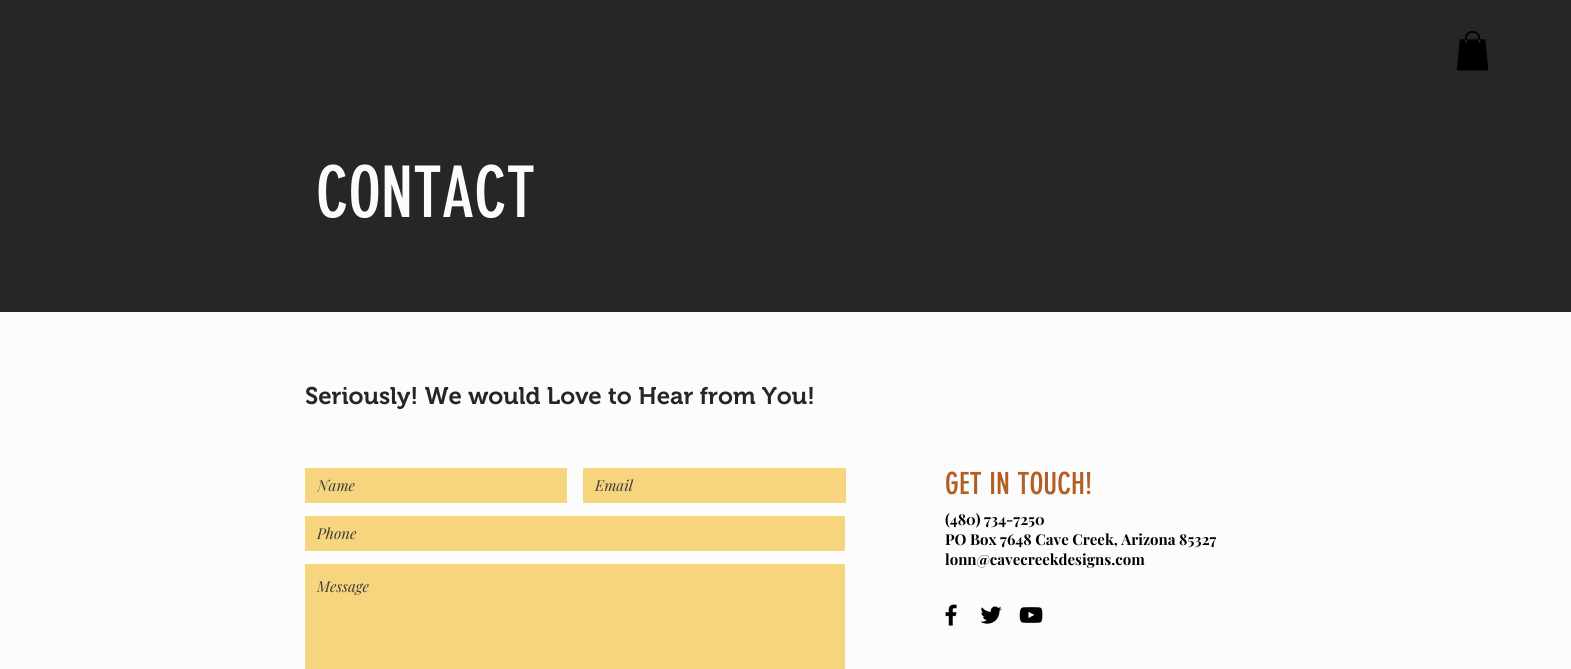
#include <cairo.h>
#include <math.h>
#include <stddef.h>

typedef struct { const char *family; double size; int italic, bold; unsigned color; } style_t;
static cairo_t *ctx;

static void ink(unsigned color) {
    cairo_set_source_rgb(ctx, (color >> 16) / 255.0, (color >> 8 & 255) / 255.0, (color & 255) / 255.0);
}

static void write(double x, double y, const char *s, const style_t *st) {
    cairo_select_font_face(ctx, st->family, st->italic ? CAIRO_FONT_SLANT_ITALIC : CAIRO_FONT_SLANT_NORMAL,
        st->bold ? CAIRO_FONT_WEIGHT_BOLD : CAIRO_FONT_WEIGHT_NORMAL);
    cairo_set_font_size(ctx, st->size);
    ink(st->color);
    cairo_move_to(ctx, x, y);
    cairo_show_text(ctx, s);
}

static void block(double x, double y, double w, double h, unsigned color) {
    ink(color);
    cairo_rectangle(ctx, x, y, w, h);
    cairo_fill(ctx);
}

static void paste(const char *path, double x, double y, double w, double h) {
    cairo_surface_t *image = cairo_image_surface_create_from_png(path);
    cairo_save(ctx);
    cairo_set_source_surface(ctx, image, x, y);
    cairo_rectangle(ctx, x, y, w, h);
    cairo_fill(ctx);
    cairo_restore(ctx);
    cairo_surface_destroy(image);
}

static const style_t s1 = {"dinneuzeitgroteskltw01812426", 70, 0, 0, 0xfcfcfc};
static const style_t s2 = {"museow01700 SemiBold", 24, 0, 0, 0x262626};
static const style_t s3 = {"Playfair Display", 15, 1, 0, 0x3b3b3b};
static const style_t s4 = {"dinneuzeitgroteskltw01812426", 30, 0, 0, 0xb35f24};
static const style_t s5 = {"Playfair Display", 15, 0, 1, 0x000000};

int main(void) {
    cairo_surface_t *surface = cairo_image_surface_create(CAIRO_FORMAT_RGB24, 1571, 669);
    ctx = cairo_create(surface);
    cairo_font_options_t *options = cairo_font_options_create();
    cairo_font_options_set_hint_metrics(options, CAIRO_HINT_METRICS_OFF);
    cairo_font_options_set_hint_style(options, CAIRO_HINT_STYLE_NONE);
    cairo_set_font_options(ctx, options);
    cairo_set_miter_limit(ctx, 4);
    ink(0x262626);
    cairo_paint(ctx);
    paste("pic1.png", 1456, 31, 33, 40);
    write(316, 217, "CONTACT", &s1);
    block(0, 312, 1571, 357, 0xfcfcfc);
    write(305, 404, "Seriously! We would Love to Hear from You!", &s2);
    block(305, 468, 262, 35, 0xf7d57f);
    cairo_save(ctx);
    cairo_rectangle(ctx, 317, 475, 247, 20);
    cairo_clip(ctx);
    write(317, 491, "Name", &s3);
    cairo_restore(ctx);
    block(583, 468, 263, 35, 0xf7d57f);
    write(595, 491, "Email", &s3);
    block(305, 516, 540, 35, 0xf7d57f);
    write(317, 539, "Phone", &s3);
    block(305, 564, 540, 105, 0xf7d57f);
    write(317, 592, "Message", &s3);
    write(945, 494, "GET IN TOUCH!", &s4);
    write(945, 525, "(480) 734-7250", &s5);
    write(945, 545, "PO Box 7648 Cave Creek, Arizona 85327", &s5);
    write(945, 565, "lonn@cavecreekdesigns.com", &s5);
    paste("pic2.png", 945, 604, 12, 22);
    paste("pic3.png", 980, 606, 22, 18);
    paste("pic4.png", 1019, 607, 24, 16);
    cairo_surface_write_to_png(surface, "screenshot.png");
    cairo_font_options_destroy(options);
    cairo_destroy(ctx);
    cairo_surface_destroy(surface);
    return 0;
}
